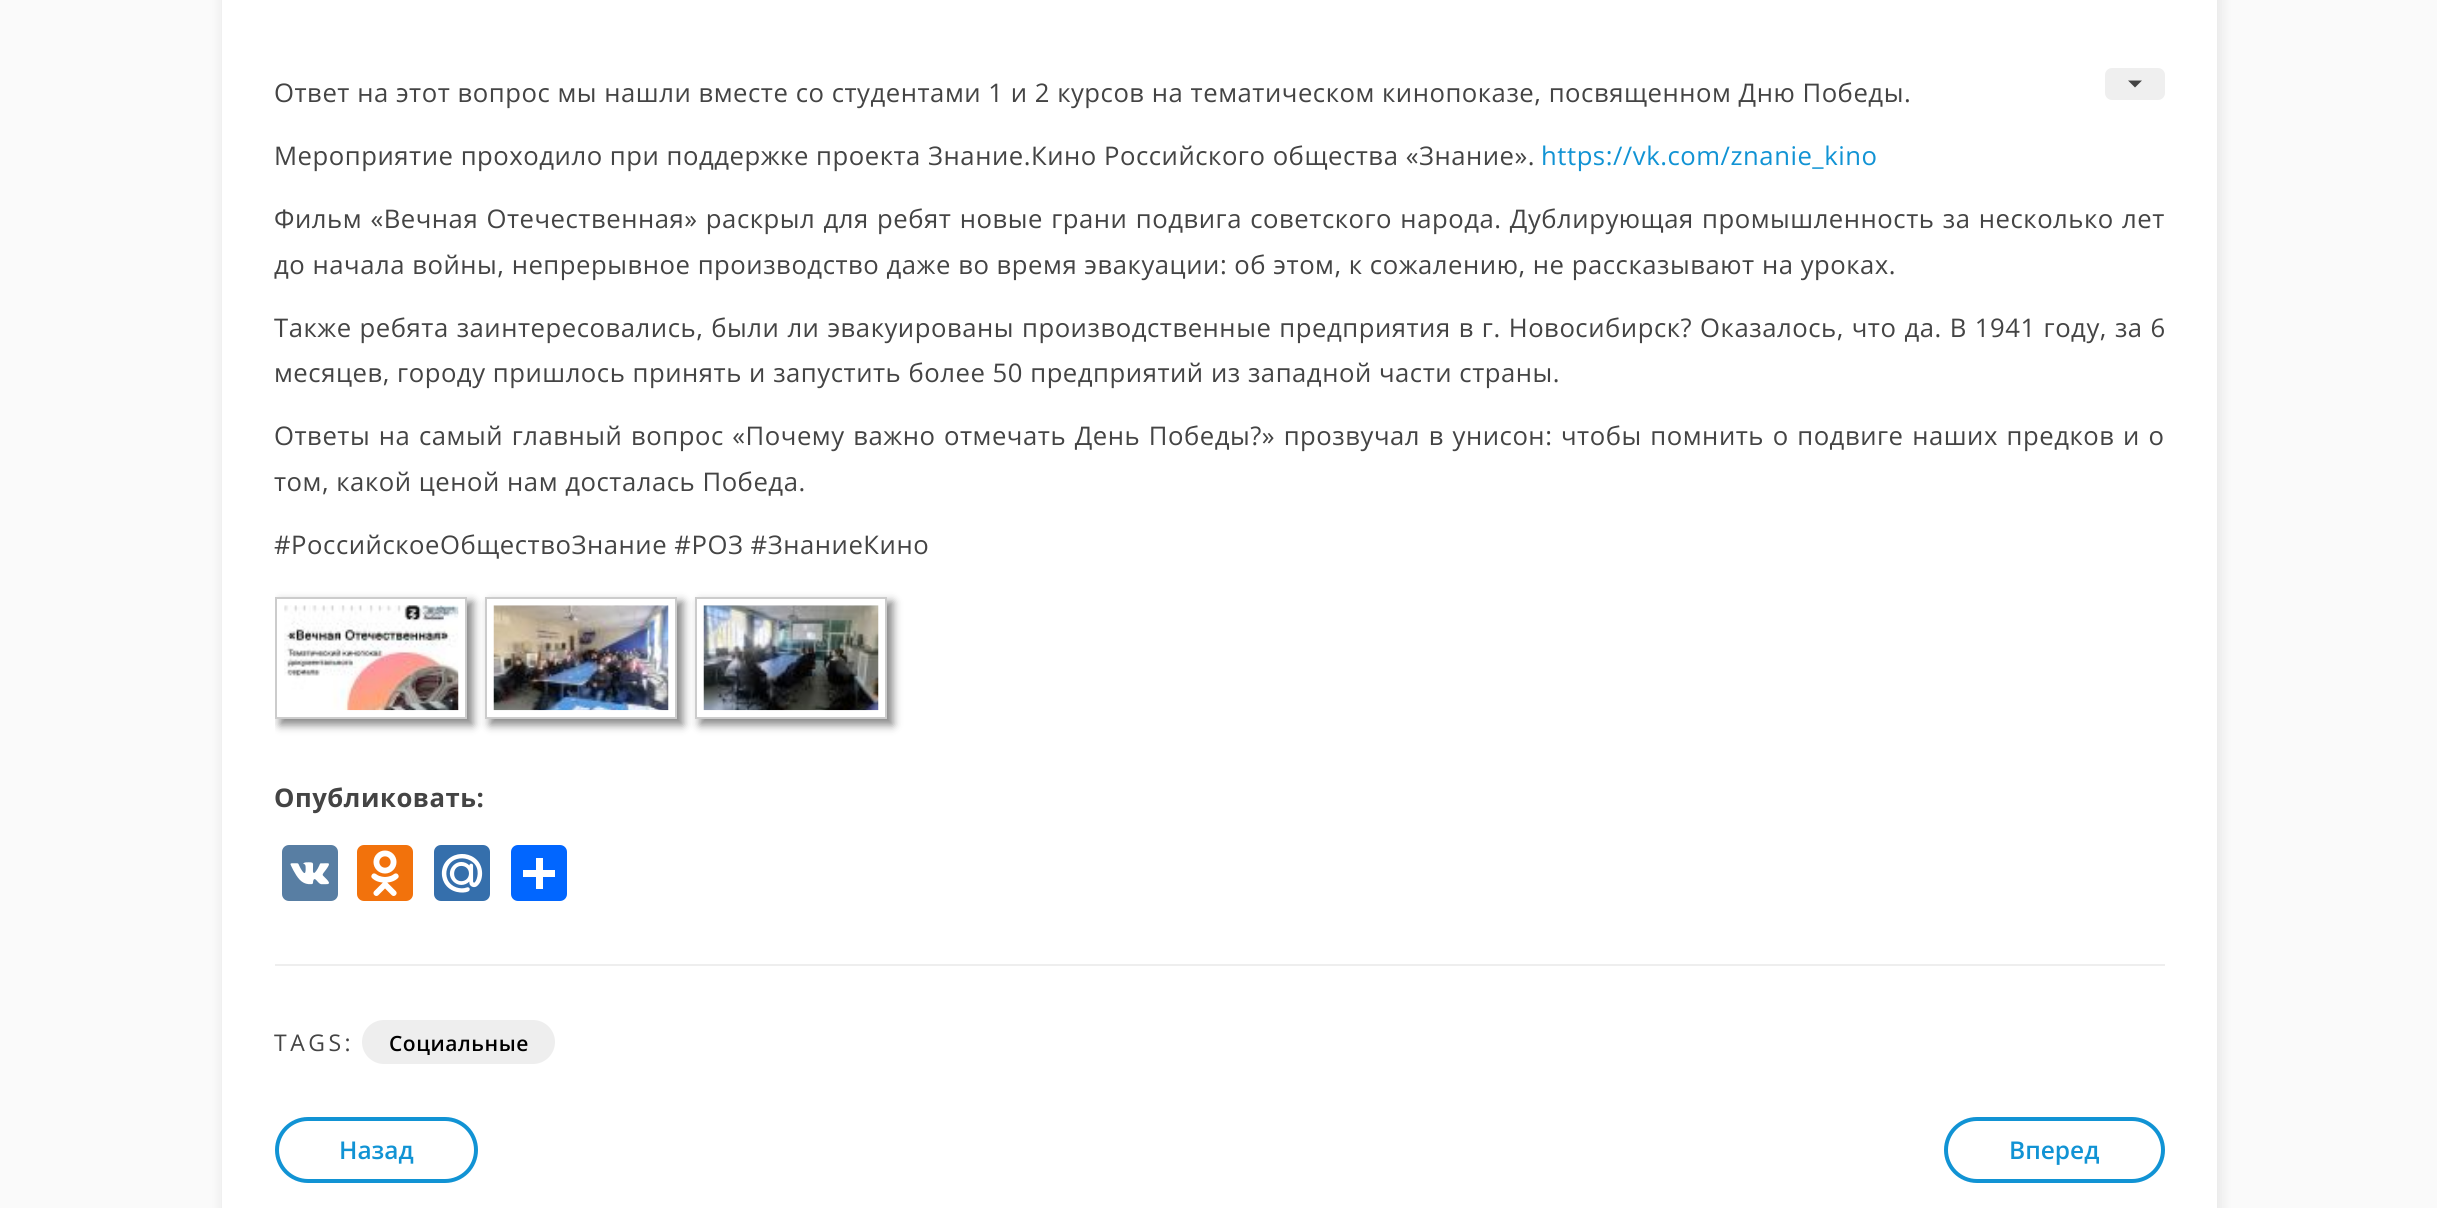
#include <cairo.h>
#include <math.h>
#include <stddef.h>

typedef struct { const char *family; double size; int italic, bold; unsigned color; } style_t;
static cairo_t *ctx;

static void ink(unsigned color) {
    cairo_set_source_rgb(ctx, (color >> 16) / 255.0, (color >> 8 & 255) / 255.0, (color & 255) / 255.0);
}

static void write(double x, double y, const char *s, const style_t *st) {
    cairo_select_font_face(ctx, st->family, st->italic ? CAIRO_FONT_SLANT_ITALIC : CAIRO_FONT_SLANT_NORMAL,
        st->bold ? CAIRO_FONT_WEIGHT_BOLD : CAIRO_FONT_WEIGHT_NORMAL);
    cairo_set_font_size(ctx, st->size);
    ink(st->color);
    cairo_move_to(ctx, x, y);
    cairo_show_text(ctx, s);
}

static void write_spaced(double x, double y, const char *s, double letter, double word) {
    cairo_move_to(ctx, x, y);
    while (*s) {
        char ch[5] = {0};
        int n = 0;
        do ch[n++] = *s++; while ((*s & 0xC0) == 0x80);
        cairo_show_text(ctx, ch);
        cairo_rel_move_to(ctx, letter + word * (*ch == ' '), 0);
    }
}

static void block(double x, double y, double w, double h, unsigned color) {
    ink(color);
    cairo_rectangle(ctx, x, y, w, h);
    cairo_fill(ctx);
}

static void round_path(double x, double y, double w, double h, double r) {
    cairo_new_sub_path(ctx);
    cairo_arc(ctx, x + w - r, y + h - r, r, 0, M_PI / 2);
    cairo_arc(ctx, x + r, y + h - r, r, M_PI / 2, M_PI);
    cairo_arc(ctx, x + r, y + r, r, M_PI, 1.5 * M_PI);
    cairo_arc(ctx, x + w - r, y + r, r, 1.5 * M_PI, 2 * M_PI);
    cairo_close_path(ctx);
}

static void blur_box(double x, double y, double w, double h, double r, double blur, double alpha) {
    cairo_push_group_with_content(ctx, CAIRO_CONTENT_ALPHA);
    cairo_set_operator(ctx, CAIRO_OPERATOR_SOURCE);
    for (int i = 15; i >= -15 && fmin(w, h) + blur * i / 3 > 0; i -= 2) {
        double e = blur * i / 6;
        cairo_set_source_rgba(ctx, 0, 0, 0, alpha * erfc((i - 1) / 8.5) / 2);
        round_path(x - e, y - e, w + 2 * e, h + 2 * e, fmax(0, fmin(r + e + blur * .6, fmin(w, h) / 2 + e)));
        cairo_fill(ctx);
    }
    cairo_pattern_t *soft = cairo_pop_group(ctx);
    cairo_mask(ctx, soft);
    cairo_pattern_destroy(soft);
}

static void paste(const char *path, double x, double y, double w, double h) {
    cairo_surface_t *image = cairo_image_surface_create_from_png(path);
    cairo_save(ctx);
    cairo_set_source_surface(ctx, image, x, y);
    cairo_rectangle(ctx, x, y, w, h);
    cairo_fill(ctx);
    cairo_restore(ctx);
    cairo_surface_destroy(image);
}

static const style_t s1 = {"Open Sans SemiBold", 24.5, 0, 0, 0x1193d4};

int main(void) {
    cairo_surface_t *surface = cairo_image_surface_create(CAIRO_FORMAT_RGB24, 2437, 1208);
    ctx = cairo_create(surface);
    cairo_font_options_t *options = cairo_font_options_create();
    cairo_font_options_set_hint_metrics(options, CAIRO_HINT_METRICS_OFF);
    cairo_font_options_set_hint_style(options, CAIRO_HINT_STYLE_NONE);
    cairo_set_font_options(ctx, options);
    cairo_set_miter_limit(ctx, 4);
    ink(0xfafafa);
    cairo_paint(ctx);
    ink(0x000000);
    blur_box(222, -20, 1999, 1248, 0, 6.5, 0.08);
    block(222, 0, 1995, 1208, 0xffffff);
    ink(0xefefef);
    round_path(2105, 68, 60, 32, 7);
    cairo_fill(ctx);
    ink(0x444444);
    cairo_new_path(ctx);
    cairo_move_to(ctx, 2128, 80.5);
    cairo_line_to(ctx, 2142, 80.5);
    cairo_line_to(ctx, 2135, 87.5);
    cairo_close_path(ctx);
    cairo_fill(ctx);
    block(275, 964, 1890, 2, 0xeeeeee);
    cairo_select_font_face(ctx, "Open Sans", CAIRO_FONT_SLANT_NORMAL, CAIRO_FONT_WEIGHT_NORMAL);
    cairo_set_font_size(ctx, 25.67);
    ink(0x444444);
    write_spaced(274, 102, "Ответ на этот вопрос мы нашли вместе со студентами 1 и 2 курсов на тематическом кинопоказе, посвященном Дню Победы.", 0.53, 0);
    write_spaced(274, 165, "Мероприятие проходило при поддержке проекта Знание.Кино Российского общества «Знание».", 0.53, 0);
    ink(0x1193d4);
    write_spaced(1541, 165, "https://vk.com/znanie_kino", 0.53, 0);
    ink(0x444444);
    write_spaced(274, 228, "Фильм «Вечная Отечественная» раскрыл для ребят новые грани подвига советского народа. Дублирующая промышленность за несколько лет", 0.53, 1.1);
    write_spaced(274, 274, "до начала войны, непрерывное производство даже во время эвакуации: об этом, к сожалению, не рассказывают на уроках.", 0.53, 0);
    write_spaced(274, 337, "Также ребята заинтересовались, были ли эвакуированы производственные предприятия в г. Новосибирск? Оказалось, что да. В 1941 году, за 6", 0.53, 0.75);
    write_spaced(274, 382, "месяцев, городу пришлось принять и запустить более 50 предприятий из западной части страны.", 0.53, 0);
    write_spaced(274, 445, "Ответы на самый главный вопрос «Почему важно отмечать День Победы?» прозвучал в унисон: чтобы помнить о подвиге наших предков и о", 0.53, 1.4);
    write_spaced(274, 491, "том, какой ценой нам досталась Победа.", 0.53, 0);
    write_spaced(274, 554, "#РоссийскоеОбществоЗнание #РОЗ #ЗнаниеКино", 0.53, 0);
    cairo_save(ctx);
    cairo_rectangle(ctx, 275, 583, 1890, 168);
    cairo_clip(ctx);
    cairo_set_fill_rule(ctx, CAIRO_FILL_RULE_EVEN_ODD);
    cairo_new_path(ctx);
    cairo_move_to(ctx, 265, 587);
    cairo_line_to(ctx, 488, 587);
    cairo_line_to(ctx, 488, 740);
    cairo_line_to(ctx, 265, 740);
    cairo_close_path(ctx);
    cairo_move_to(ctx, 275, 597);
    cairo_line_to(ctx, 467, 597);
    cairo_line_to(ctx, 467, 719);
    cairo_line_to(ctx, 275, 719);
    cairo_close_path(ctx);
    cairo_clip(ctx);
    ink(0x888888);
    blur_box(280, 602, 193, 123, 0, 4.5, 1);
    cairo_restore(ctx);
    cairo_rectangle(ctx, 276, 598, 190, 120);
    ink(0xcccccc);
    cairo_stroke(ctx);
    paste("pic1.png", 284, 605, 175, 106);
    cairo_save(ctx);
    cairo_set_fill_rule(ctx, CAIRO_FILL_RULE_EVEN_ODD);
    cairo_new_path(ctx);
    cairo_move_to(ctx, 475, 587);
    cairo_line_to(ctx, 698, 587);
    cairo_line_to(ctx, 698, 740);
    cairo_line_to(ctx, 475, 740);
    cairo_close_path(ctx);
    cairo_move_to(ctx, 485, 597);
    cairo_line_to(ctx, 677, 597);
    cairo_line_to(ctx, 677, 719);
    cairo_line_to(ctx, 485, 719);
    cairo_close_path(ctx);
    cairo_clip(ctx);
    ink(0x888888);
    blur_box(490, 602, 193, 123, 0, 4.5, 1);
    cairo_restore(ctx);
    cairo_rectangle(ctx, 486, 598, 190, 120);
    cairo_stroke(ctx);
    paste("pic2.png", 493, 605, 176, 106);
    cairo_save(ctx);
    cairo_set_fill_rule(ctx, CAIRO_FILL_RULE_EVEN_ODD);
    cairo_new_path(ctx);
    cairo_move_to(ctx, 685, 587);
    cairo_line_to(ctx, 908, 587);
    cairo_line_to(ctx, 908, 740);
    cairo_line_to(ctx, 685, 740);
    cairo_close_path(ctx);
    cairo_move_to(ctx, 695, 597);
    cairo_line_to(ctx, 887, 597);
    cairo_line_to(ctx, 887, 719);
    cairo_line_to(ctx, 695, 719);
    cairo_close_path(ctx);
    cairo_clip(ctx);
    ink(0x888888);
    blur_box(700, 602, 193, 123, 0, 4.5, 1);
    cairo_restore(ctx);
    cairo_rectangle(ctx, 696, 598, 190, 120);
    cairo_stroke(ctx);
    paste("pic3.png", 703, 605, 176, 106);
    cairo_select_font_face(ctx, "Open Sans", CAIRO_FONT_SLANT_NORMAL, CAIRO_FONT_WEIGHT_BOLD);
    ink(0x444444);
    write_spaced(274, 807, "Опубликовать:", 0.53, 0);
    ink(0x587ea3);
    round_path(282, 845, 56, 56, 7);
    cairo_fill(ctx);
    paste("pic4.png", 290, 862, 39, 23);
    ink(0xf2720c);
    round_path(357, 845, 56, 56, 7);
    cairo_fill(ctx);
    paste("pic5.png", 371, 850, 28, 46);
    ink(0x356fac);
    round_path(434, 845, 56, 56, 7);
    cairo_fill(ctx);
    paste("pic6.png", 441, 854, 42, 39);
    ink(0x0166ff);
    round_path(511, 845, 56, 56, 7);
    cairo_fill(ctx);
    block(536, 858, 7, 31, 0xffffff);
    block(523, 870, 32, 7, 0xffffff);
    cairo_select_font_face(ctx, "Open Sans", CAIRO_FONT_SLANT_NORMAL, CAIRO_FONT_WEIGHT_NORMAL);
    cairo_set_font_size(ctx, 23);
    ink(0x444444);
    write_spaced(274, 1051, "TAGS:", 3.5, 0);
    ink(0xeeeeee);
    round_path(362, 1020, 193, 44, 22);
    cairo_fill(ctx);
    cairo_select_font_face(ctx, "Open Sans SemiBold", CAIRO_FONT_SLANT_NORMAL, CAIRO_FONT_WEIGHT_NORMAL);
    cairo_set_font_size(ctx, 21);
    ink(0x000000);
    write_spaced(389, 1051, "Социальные", 0.53, 0);
    round_path(277, 1119, 199, 62, 31);
    ink(0x1193d4);
    cairo_set_line_width(ctx, 4);
    cairo_stroke(ctx);
    write(339, 1159, "Назад", &s1);
    round_path(1946, 1119, 217, 62, 31);
    cairo_stroke(ctx);
    write(2009, 1159, "Вперед", &s1);
    cairo_surface_write_to_png(surface, "screenshot.png");
    cairo_font_options_destroy(options);
    cairo_destroy(ctx);
    cairo_surface_destroy(surface);
    return 0;
}
